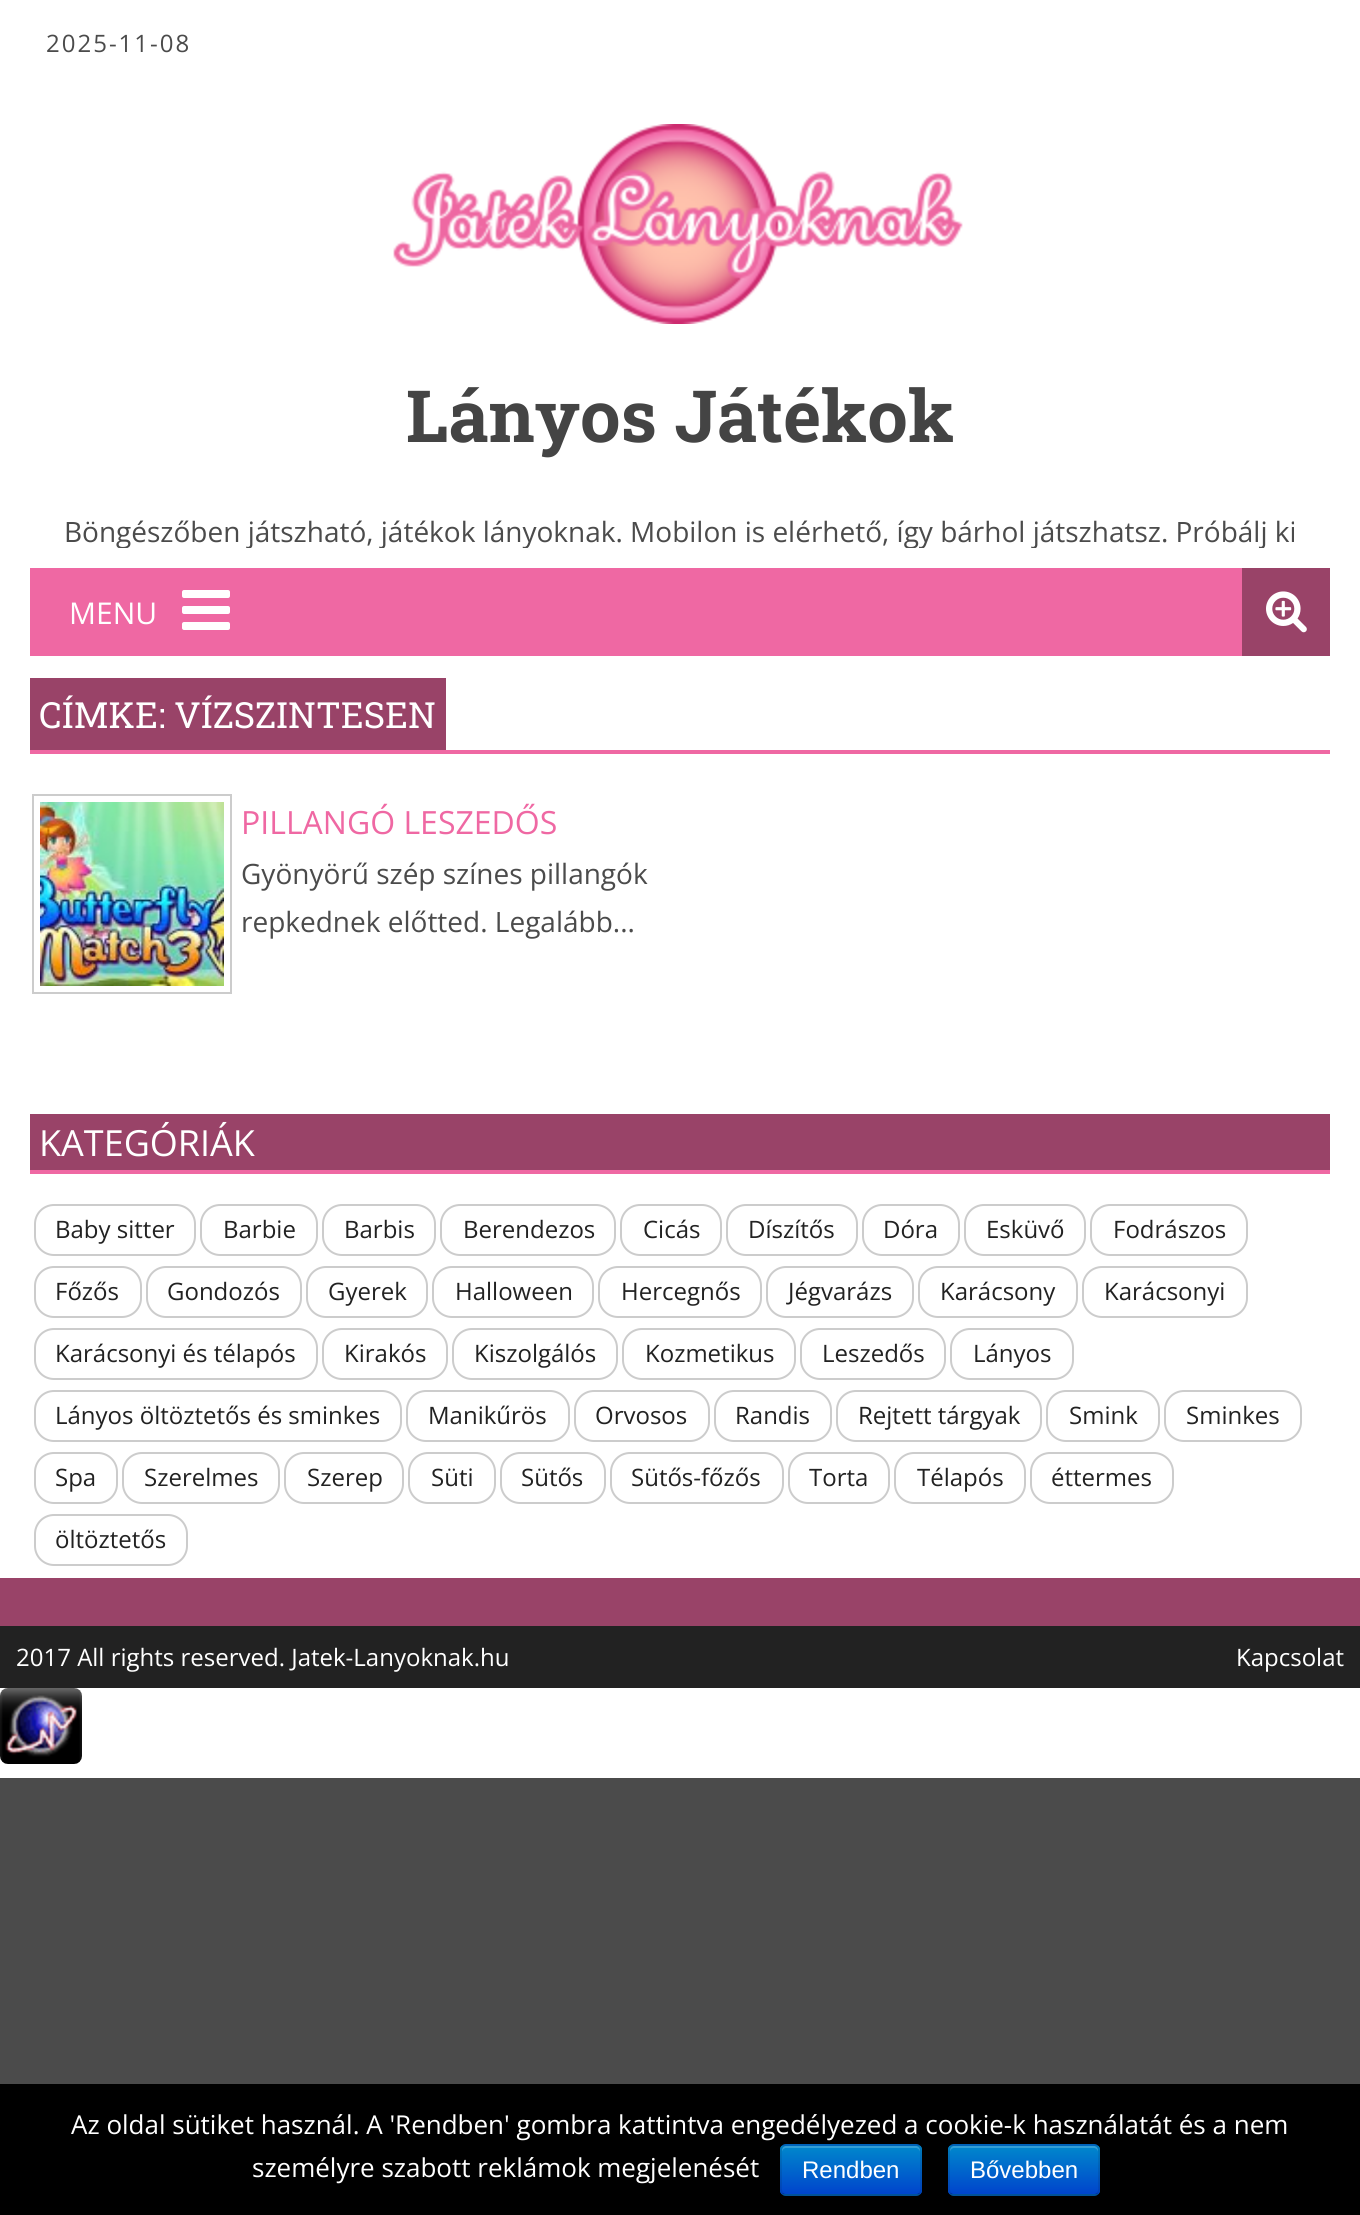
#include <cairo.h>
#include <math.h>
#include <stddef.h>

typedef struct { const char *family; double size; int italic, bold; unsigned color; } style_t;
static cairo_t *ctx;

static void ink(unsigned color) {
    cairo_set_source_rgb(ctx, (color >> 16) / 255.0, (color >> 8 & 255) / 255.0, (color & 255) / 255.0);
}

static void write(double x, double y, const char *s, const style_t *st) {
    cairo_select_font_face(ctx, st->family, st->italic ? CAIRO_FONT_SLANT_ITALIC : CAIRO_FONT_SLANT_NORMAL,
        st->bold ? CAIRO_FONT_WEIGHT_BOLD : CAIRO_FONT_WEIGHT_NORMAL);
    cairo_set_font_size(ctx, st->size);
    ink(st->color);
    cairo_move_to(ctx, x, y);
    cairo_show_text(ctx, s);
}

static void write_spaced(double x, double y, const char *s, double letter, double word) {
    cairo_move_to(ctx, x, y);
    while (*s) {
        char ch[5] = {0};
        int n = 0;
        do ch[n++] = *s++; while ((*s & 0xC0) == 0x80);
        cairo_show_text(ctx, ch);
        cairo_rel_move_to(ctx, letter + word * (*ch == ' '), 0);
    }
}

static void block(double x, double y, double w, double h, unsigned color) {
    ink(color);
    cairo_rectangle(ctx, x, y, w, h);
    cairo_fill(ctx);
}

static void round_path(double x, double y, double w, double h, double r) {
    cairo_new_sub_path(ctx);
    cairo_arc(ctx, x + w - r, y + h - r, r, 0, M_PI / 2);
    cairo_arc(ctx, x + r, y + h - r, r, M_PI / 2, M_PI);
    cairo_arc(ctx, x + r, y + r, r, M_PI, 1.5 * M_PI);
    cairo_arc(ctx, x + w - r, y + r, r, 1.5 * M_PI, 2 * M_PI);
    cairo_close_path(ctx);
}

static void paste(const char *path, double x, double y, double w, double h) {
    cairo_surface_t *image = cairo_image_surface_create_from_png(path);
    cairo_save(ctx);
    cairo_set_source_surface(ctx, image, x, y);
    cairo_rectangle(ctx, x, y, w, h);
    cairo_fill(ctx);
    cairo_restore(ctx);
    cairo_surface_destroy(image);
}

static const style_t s1 = {"Roboto Slab", 72, 0, 1, 0x444444};
static const style_t s2 = {"Open Sans", 28, 0, 0, 0x4b4b4b};
static const style_t s3 = {"Open Sans", 30, 0, 0, 0xffffff};
static const style_t s4 = {"Roboto Slab", 36, 0, 0, 0xffffff};
static const style_t s5 = {"Open Sans", 32, 0, 0, 0xef68a3};
static const style_t s6 = {"Open Sans", 36, 0, 0, 0xffffff};
static const style_t s7 = {"Open Sans", 24, 0, 0, 0x222222};
static const style_t s8 = {"Open Sans", 24, 0, 0, 0xffffff};
static const style_t s9 = {"Open Sans", 26, 0, 0, 0xffffff};
static const style_t s10 = {"Liberation Sans", 24, 0, 0, 0xffffff};

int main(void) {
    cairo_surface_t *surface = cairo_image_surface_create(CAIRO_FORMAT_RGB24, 1360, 2215);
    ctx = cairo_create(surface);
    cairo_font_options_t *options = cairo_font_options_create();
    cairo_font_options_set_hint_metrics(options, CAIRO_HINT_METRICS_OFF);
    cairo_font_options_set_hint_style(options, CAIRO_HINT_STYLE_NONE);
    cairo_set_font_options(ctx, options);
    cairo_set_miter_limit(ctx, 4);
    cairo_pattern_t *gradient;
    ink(0x4b4b4b);
    cairo_paint(ctx);
    block(0, 0, 1360, 1778, 0xffffff);
    cairo_select_font_face(ctx, "Open Sans", CAIRO_FONT_SLANT_NORMAL, CAIRO_FONT_WEIGHT_NORMAL);
    cairo_set_font_size(ctx, 24);
    ink(0x4b4b4b);
    write_spaced(46, 52, "2025-11-08", 2, 0);
    paste("pic1.png", 393, 124, 570, 200);
    write(406, 442, "Lányos Játékok", &s1);
    cairo_save(ctx);
    cairo_rectangle(ctx, 30, 368, 1300, 180);
    cairo_clip(ctx);
    write(64, 542, "Böngészőben játszható, játékok lányoknak. Mobilon is elérhető, így bárhol játszhatsz. Próbálj ki", &s2);
    cairo_restore(ctx);
    block(30, 568, 1212, 88, 0xef68a3);
    write(69, 624, "MENU", &s3);
    paste("pic2.png", 182, 590, 48, 40);
    block(1242, 568, 88, 88, 0x994368);
    paste("pic3.png", 1266, 591, 41, 42);
    block(30, 678, 416, 72, 0x994368);
    write(39, 728, "CÍMKE: VÍZSZINTESEN", &s4);
    block(30, 750, 1300, 4, 0xef68a3);
    cairo_rectangle(ctx, 33, 795, 198, 198);
    ink(0xcccccc);
    cairo_stroke(ctx);
    paste("pic4.png", 40, 802, 184, 184);
    write(241, 834, "PILLANGÓ LESZEDŐS", &s5);
    write(241, 884, "Gyönyörű szép színes pillangók", &s2);
    write(241, 932, "repkednek előtted. Legalább...", &s2);
    block(30, 1114, 1300, 56, 0x994368);
    write(39, 1156, "KATEGÓRIÁK", &s6);
    block(30, 1170, 1300, 4, 0xef68a3);
    round_path(35, 1205, 160, 50, 19);
    ink(0xcccccc);
    cairo_stroke(ctx);
    write(55, 1238, "Baby sitter", &s7);
    round_path(201, 1205, 116, 50, 19);
    ink(0xcccccc);
    cairo_stroke(ctx);
    write(223, 1238, "Barbie", &s7);
    round_path(323, 1205, 112, 50, 19);
    ink(0xcccccc);
    cairo_stroke(ctx);
    write(344, 1238, "Barbis", &s7);
    round_path(441, 1205, 174, 50, 19);
    ink(0xcccccc);
    cairo_stroke(ctx);
    write(463, 1238, "Berendezos", &s7);
    round_path(621, 1205, 100, 50, 19);
    ink(0xcccccc);
    cairo_stroke(ctx);
    write(643, 1238, "Cicás", &s7);
    round_path(727, 1205, 130, 50, 19);
    ink(0xcccccc);
    cairo_stroke(ctx);
    write(748, 1238, "Díszítős", &s7);
    round_path(863, 1205, 96, 50, 19);
    ink(0xcccccc);
    cairo_stroke(ctx);
    write(883, 1238, "Dóra", &s7);
    round_path(965, 1205, 120, 50, 19);
    ink(0xcccccc);
    cairo_stroke(ctx);
    write(986, 1238, "Esküvő", &s7);
    round_path(1091, 1205, 156, 50, 19);
    ink(0xcccccc);
    cairo_stroke(ctx);
    write(1113, 1238, "Fodrászos", &s7);
    round_path(35, 1267, 106, 50, 19);
    ink(0xcccccc);
    cairo_stroke(ctx);
    write(55, 1300, "Főzős", &s7);
    round_path(147, 1267, 154, 50, 19);
    ink(0xcccccc);
    cairo_stroke(ctx);
    write(167, 1300, "Gondozós", &s7);
    round_path(307, 1267, 120, 50, 19);
    ink(0xcccccc);
    cairo_stroke(ctx);
    write(328, 1300, "Gyerek", &s7);
    round_path(433, 1267, 160, 50, 19);
    ink(0xcccccc);
    cairo_stroke(ctx);
    write(455, 1300, "Halloween", &s7);
    round_path(599, 1267, 162, 50, 19);
    ink(0xcccccc);
    cairo_stroke(ctx);
    write(621, 1300, "Hercegnős", &s7);
    round_path(767, 1267, 146, 50, 19);
    ink(0xcccccc);
    cairo_stroke(ctx);
    write(788, 1300, "Jégvarázs", &s7);
    round_path(919, 1267, 158, 50, 19);
    ink(0xcccccc);
    cairo_stroke(ctx);
    write(940, 1300, "Karácsony", &s7);
    round_path(1083, 1267, 164, 50, 19);
    ink(0xcccccc);
    cairo_stroke(ctx);
    write(1104, 1300, "Karácsonyi", &s7);
    round_path(35, 1329, 282, 50, 19);
    ink(0xcccccc);
    cairo_stroke(ctx);
    write(55, 1362, "Karácsonyi és télapós", &s7);
    round_path(323, 1329, 124, 50, 19);
    ink(0xcccccc);
    cairo_stroke(ctx);
    write(344, 1362, "Kirakós", &s7);
    round_path(453, 1329, 164, 50, 19);
    ink(0xcccccc);
    cairo_stroke(ctx);
    write(474, 1362, "Kiszolgálós", &s7);
    round_path(623, 1329, 172, 50, 19);
    ink(0xcccccc);
    cairo_stroke(ctx);
    write(645, 1362, "Kozmetikus", &s7);
    round_path(801, 1329, 144, 50, 19);
    ink(0xcccccc);
    cairo_stroke(ctx);
    write(822, 1362, "Leszedős", &s7);
    round_path(951, 1329, 122, 50, 19);
    ink(0xcccccc);
    cairo_stroke(ctx);
    write(973, 1362, "Lányos", &s7);
    round_path(35, 1391, 366, 50, 19);
    ink(0xcccccc);
    cairo_stroke(ctx);
    write(55, 1424, "Lányos öltöztetős és sminkes", &s7);
    round_path(407, 1391, 162, 50, 19);
    ink(0xcccccc);
    cairo_stroke(ctx);
    write(428, 1424, "Manikűrös", &s7);
    round_path(575, 1391, 134, 50, 19);
    ink(0xcccccc);
    cairo_stroke(ctx);
    write(595, 1424, "Orvosos", &s7);
    round_path(715, 1391, 116, 50, 19);
    ink(0xcccccc);
    cairo_stroke(ctx);
    write(735, 1424, "Randis", &s7);
    round_path(837, 1391, 204, 50, 19);
    ink(0xcccccc);
    cairo_stroke(ctx);
    write(858, 1424, "Rejtett tárgyak", &s7);
    round_path(1047, 1391, 112, 50, 19);
    ink(0xcccccc);
    cairo_stroke(ctx);
    write(1069, 1424, "Smink", &s7);
    round_path(1165, 1391, 136, 50, 19);
    ink(0xcccccc);
    cairo_stroke(ctx);
    write(1186, 1424, "Sminkes", &s7);
    round_path(35, 1453, 82, 50, 19);
    ink(0xcccccc);
    cairo_stroke(ctx);
    write(55, 1486, "Spa", &s7);
    round_path(123, 1453, 156, 50, 19);
    ink(0xcccccc);
    cairo_stroke(ctx);
    write(144, 1486, "Szerelmes", &s7);
    round_path(285, 1453, 118, 50, 19);
    ink(0xcccccc);
    cairo_stroke(ctx);
    write(307, 1486, "Szerep", &s7);
    round_path(409, 1453, 86, 50, 19);
    ink(0xcccccc);
    cairo_stroke(ctx);
    write(431, 1486, "Süti", &s7);
    round_path(501, 1453, 104, 50, 19);
    ink(0xcccccc);
    cairo_stroke(ctx);
    write(521, 1486, "Sütős", &s7);
    round_path(611, 1453, 172, 50, 19);
    ink(0xcccccc);
    cairo_stroke(ctx);
    write(631, 1486, "Sütős-főzős", &s7);
    round_path(789, 1453, 100, 50, 19);
    ink(0xcccccc);
    cairo_stroke(ctx);
    write(809, 1486, "Torta", &s7);
    round_path(895, 1453, 130, 50, 19);
    ink(0xcccccc);
    cairo_stroke(ctx);
    write(917, 1486, "Télapós", &s7);
    round_path(1031, 1453, 142, 50, 19);
    ink(0xcccccc);
    cairo_stroke(ctx);
    write(1051, 1486, "éttermes", &s7);
    round_path(35, 1515, 152, 50, 19);
    ink(0xcccccc);
    cairo_stroke(ctx);
    write(55, 1548, "öltöztetős", &s7);
    block(0, 1578, 1360, 48, 0x994368);
    block(0, 1626, 1360, 62, 0x222222);
    write(16, 1666, "2017 All rights reserved. Jatek-Lanyoknak.hu", &s8);
    write(1236, 1666, "Kapcsolat", &s8);
    paste("pic5.png", 0, 1688, 82, 76);
    block(0, 2084, 1360, 131, 0x000000);
    write(71, 2134, "Az oldal sütiket használ. A 'Rendben' gombra kattintva engedélyezed a cookie-k használatát és a nem", &s9);
    write(252, 2177, "személyre szabott reklámok megjelenését", &s9);
    ink(0x006dcc);
    round_path(780, 2144, 142, 52, 6);
    cairo_fill(ctx);
    cairo_save(ctx);
    round_path(780, 2144, 142, 52, 6);
    cairo_clip(ctx);
    gradient = cairo_pattern_create_linear(851, 2146, 851, 2194);
    cairo_pattern_add_color_stop_rgba(gradient, 0, 0, 0.533, 0.8, 1);
    cairo_pattern_add_color_stop_rgba(gradient, 1, 0, 0.267, 0.8, 1);
    cairo_set_source(ctx, gradient);
    cairo_pattern_destroy(gradient);
    cairo_rectangle(ctx, 780, 2146, 142, 48);
    cairo_fill(ctx);
    cairo_restore(ctx);
    cairo_set_source_rgba(ctx, 1, 1, 1, 0.2);
    cairo_new_path(ctx);
    cairo_move_to(ctx, 786, 2148);
    cairo_line_to(ctx, 916, 2148);
    cairo_curve_to(ctx, 918, 2148, 920, 2150, 920, 2152);
    cairo_line_to(ctx, 920, 2150);
    cairo_curve_to(ctx, 920, 2148, 918, 2146, 916, 2146);
    cairo_line_to(ctx, 786, 2146);
    cairo_curve_to(ctx, 784, 2146, 782, 2148, 782, 2150);
    cairo_line_to(ctx, 782, 2152);
    cairo_curve_to(ctx, 782, 2150, 784, 2148, 786, 2148);
    cairo_close_path(ctx);
    cairo_fill(ctx);
    cairo_new_path(ctx);
    cairo_move_to(ctx, 919.5, 2193.5);
    cairo_curve_to(ctx, 918.5, 2194.5, 917.5, 2195, 916, 2195);
    cairo_line_to(ctx, 786, 2195);
    cairo_curve_to(ctx, 784.5, 2195, 783.5, 2194.5, 782.5, 2193.5);
    cairo_set_source_rgba(ctx, 0, 0, 0, 0.25);
    cairo_stroke(ctx);
    cairo_new_path(ctx);
    cairo_move_to(ctx, 782.5, 2193.5);
    cairo_curve_to(ctx, 780, 2191, 781, 2186, 781, 2183.5);
    cairo_line_to(ctx, 781, 2170);
    cairo_curve_to(ctx, 781, 2140, 776.5, 2145, 807.5, 2145);
    cairo_line_to(ctx, 916, 2145);
    cairo_curve_to(ctx, 922, 2145, 921, 2153, 921, 2156.5);
    cairo_line_to(ctx, 921, 2183.5);
    cairo_curve_to(ctx, 921, 2186, 922, 2191, 919.5, 2193.5);
    cairo_set_source_rgba(ctx, 0, 0, 0, 0.1);
    cairo_stroke(ctx);
    write(802, 2178, "Rendben", &s10);
    ink(0x006dcc);
    round_path(948, 2144, 152, 52, 6);
    cairo_fill(ctx);
    cairo_save(ctx);
    round_path(948, 2144, 152, 52, 6);
    cairo_clip(ctx);
    gradient = cairo_pattern_create_linear(1024, 2146, 1024, 2194);
    cairo_pattern_add_color_stop_rgba(gradient, 0, 0, 0.533, 0.8, 1);
    cairo_pattern_add_color_stop_rgba(gradient, 1, 0, 0.267, 0.8, 1);
    cairo_set_source(ctx, gradient);
    cairo_pattern_destroy(gradient);
    cairo_rectangle(ctx, 948, 2146, 152, 48);
    cairo_fill(ctx);
    cairo_restore(ctx);
    cairo_set_source_rgba(ctx, 1, 1, 1, 0.2);
    cairo_new_path(ctx);
    cairo_move_to(ctx, 954, 2148);
    cairo_line_to(ctx, 1094, 2148);
    cairo_curve_to(ctx, 1096, 2148, 1098, 2150, 1098, 2152);
    cairo_line_to(ctx, 1098, 2150);
    cairo_curve_to(ctx, 1098, 2148, 1096, 2146, 1094, 2146);
    cairo_line_to(ctx, 954, 2146);
    cairo_curve_to(ctx, 952, 2146, 950, 2148, 950, 2150);
    cairo_line_to(ctx, 950, 2152);
    cairo_curve_to(ctx, 950, 2150, 952, 2148, 954, 2148);
    cairo_close_path(ctx);
    cairo_fill(ctx);
    cairo_new_path(ctx);
    cairo_move_to(ctx, 1097.5, 2193.5);
    cairo_curve_to(ctx, 1096.5, 2194.5, 1095.5, 2195, 1094, 2195);
    cairo_line_to(ctx, 954, 2195);
    cairo_curve_to(ctx, 952.5, 2195, 951.5, 2194.5, 950.5, 2193.5);
    cairo_set_source_rgba(ctx, 0, 0, 0, 0.25);
    cairo_stroke(ctx);
    cairo_new_path(ctx);
    cairo_move_to(ctx, 950.5, 2193.5);
    cairo_curve_to(ctx, 948, 2191, 949, 2186, 949, 2183.5);
    cairo_line_to(ctx, 949, 2156.5);
    cairo_curve_to(ctx, 949, 2153, 948, 2145, 954, 2145);
    cairo_line_to(ctx, 1070.5, 2145);
    cairo_curve_to(ctx, 1103.5, 2145, 1099, 2139.5, 1099, 2170);
    cairo_line_to(ctx, 1099, 2183.5);
    cairo_curve_to(ctx, 1099, 2186, 1100, 2191, 1097.5, 2193.5);
    cairo_set_source_rgba(ctx, 0, 0, 0, 0.1);
    cairo_stroke(ctx);
    write(970, 2178, "Bővebben", &s10);
    cairo_surface_write_to_png(surface, "screenshot.png");
    cairo_font_options_destroy(options);
    cairo_destroy(ctx);
    cairo_surface_destroy(surface);
    return 0;
}
